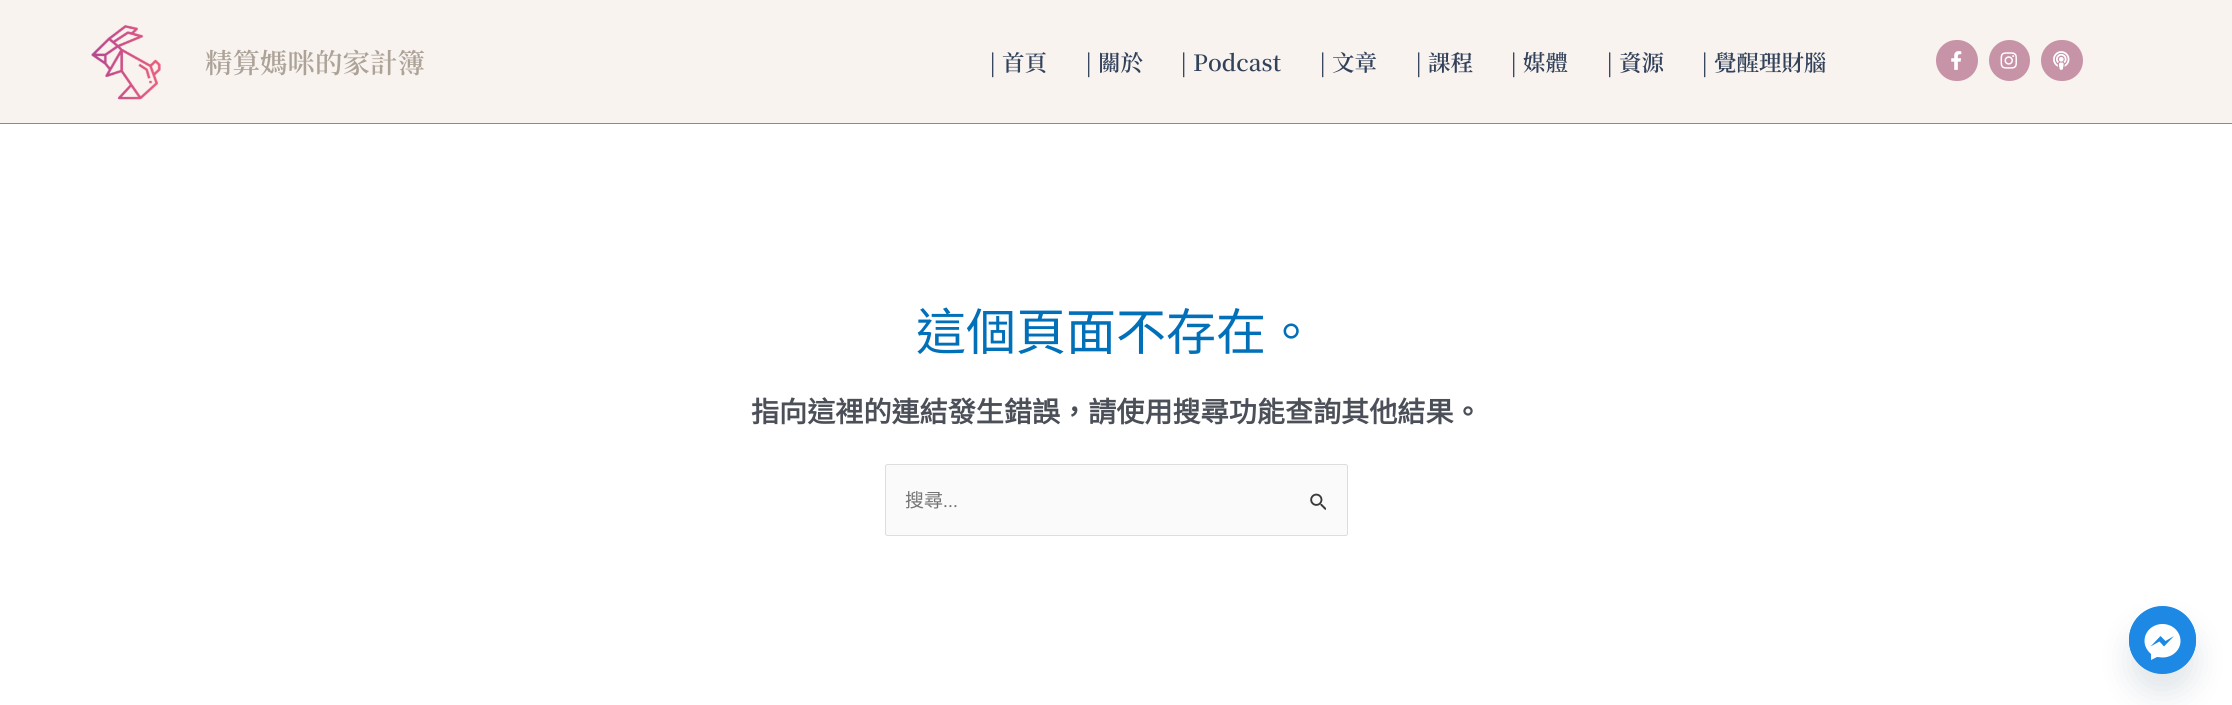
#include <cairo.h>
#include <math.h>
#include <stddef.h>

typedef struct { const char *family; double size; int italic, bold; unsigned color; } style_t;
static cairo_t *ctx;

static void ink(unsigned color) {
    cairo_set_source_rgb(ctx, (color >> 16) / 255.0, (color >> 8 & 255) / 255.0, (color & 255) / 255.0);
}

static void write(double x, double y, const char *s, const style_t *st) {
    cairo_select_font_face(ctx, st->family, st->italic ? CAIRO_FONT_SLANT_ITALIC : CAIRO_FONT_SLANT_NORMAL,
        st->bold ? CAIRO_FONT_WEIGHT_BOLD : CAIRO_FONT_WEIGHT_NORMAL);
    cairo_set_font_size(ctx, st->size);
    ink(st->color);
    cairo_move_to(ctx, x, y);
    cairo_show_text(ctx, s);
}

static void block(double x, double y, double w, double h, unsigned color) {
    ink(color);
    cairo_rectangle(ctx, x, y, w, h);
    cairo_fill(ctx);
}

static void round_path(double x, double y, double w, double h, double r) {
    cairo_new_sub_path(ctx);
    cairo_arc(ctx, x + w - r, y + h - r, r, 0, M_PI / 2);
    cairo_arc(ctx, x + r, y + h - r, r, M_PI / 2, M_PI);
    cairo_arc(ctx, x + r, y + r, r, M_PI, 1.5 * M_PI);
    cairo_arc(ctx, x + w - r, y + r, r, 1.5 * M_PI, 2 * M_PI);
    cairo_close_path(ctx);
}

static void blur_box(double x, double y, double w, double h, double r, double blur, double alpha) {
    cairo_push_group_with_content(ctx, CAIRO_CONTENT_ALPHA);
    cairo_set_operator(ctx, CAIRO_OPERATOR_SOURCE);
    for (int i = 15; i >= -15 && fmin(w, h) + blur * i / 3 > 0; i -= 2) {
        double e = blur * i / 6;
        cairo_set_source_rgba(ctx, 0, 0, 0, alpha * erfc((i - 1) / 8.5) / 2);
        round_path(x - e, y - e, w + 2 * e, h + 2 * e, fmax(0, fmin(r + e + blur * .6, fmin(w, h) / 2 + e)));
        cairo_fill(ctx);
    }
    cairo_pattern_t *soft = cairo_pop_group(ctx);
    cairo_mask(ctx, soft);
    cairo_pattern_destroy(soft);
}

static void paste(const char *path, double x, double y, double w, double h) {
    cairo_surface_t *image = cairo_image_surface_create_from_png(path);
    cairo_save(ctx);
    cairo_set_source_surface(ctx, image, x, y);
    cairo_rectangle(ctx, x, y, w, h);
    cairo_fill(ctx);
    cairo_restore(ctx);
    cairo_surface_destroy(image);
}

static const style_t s1 = {"Noto Serif TC SemiBold", 27.5, 0, 0, 0xaca298};
static const style_t s2 = {"Noto Serif TC SemiBold", 22.5, 0, 0, 0x33425b};
static const style_t s3 = {"Noto Sans CJK TC", 50, 0, 0, 0x0170b9};
static const style_t s4 = {"Noto Sans CJK TC", 28.1, 0, 1, 0x4b4f58};
static const style_t s5 = {"Noto Sans CJK TC", 19, 0, 0, 0x757575};
static const style_t s6 = {"Roboto", 19, 0, 0, 0x757575};

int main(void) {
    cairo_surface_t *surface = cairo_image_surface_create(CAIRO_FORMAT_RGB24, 2232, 705);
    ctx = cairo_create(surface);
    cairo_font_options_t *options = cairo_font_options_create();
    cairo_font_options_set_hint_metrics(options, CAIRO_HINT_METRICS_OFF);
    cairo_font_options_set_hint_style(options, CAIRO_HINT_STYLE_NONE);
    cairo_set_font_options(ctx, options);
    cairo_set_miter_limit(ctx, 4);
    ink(0xffffff);
    cairo_paint(ctx);
    block(0, 0, 2232, 123, 0xf8f3ef);
    block(0, 123, 2232, 1, 0x85899c);
    paste("pic1.png", 91, 24, 70, 76);
    write(205, 73, "精算媽咪的家計簿", &s1);
    write(989, 71, "| 首頁", &s2);
    write(1085, 71, "| 關於", &s2);
    write(1180, 71, "| Podcast", &s2);
    write(1319, 71, "| 文章", &s2);
    write(1415, 71, "| 課程", &s2);
    write(1510, 71, "| 媒體", &s2);
    write(1606, 71, "| 資源", &s2);
    write(1701, 71, "| 覺醒理財腦", &s2);
    ink(0xc794a7);
    round_path(1936, 40, 42, 41, 20.5);
    cairo_fill(ctx);
    paste("pic2.png", 1951, 51, 11, 19);
    cairo_arc(ctx, 2009.5, 60.5, 20.5, 0, 2 * M_PI);
    cairo_fill(ctx);
    paste("pic3.png", 2000, 52, 17, 17);
    round_path(2041, 40, 42, 41, 20.5);
    cairo_fill(ctx);
    paste("pic4.png", 2053, 51, 17, 19);
    write(916, 350, "這個頁面不存在。", &s3);
    write(751, 422, "指向這裡的連結發生錯誤，請使用搜尋功能查詢其他結果。", &s4);
    ink(0xfafafa);
    round_path(885.5, 464.5, 462, 71, 2);
    cairo_fill_preserve(ctx);
    ink(0xdddddd);
    cairo_set_line_width(ctx, 1);
    cairo_stroke(ctx);
    write(905, 507, "搜尋", &s5);
    write(943, 507, "...", &s6);
    paste("pic5.png", 1310, 493, 16, 17);
    ink(0x49687e);
    blur_box(2129, 626, 67, 68, 33.5, 15, 0.16);
    ink(0x1e88e5);
    round_path(2129, 606, 67, 68, 33.5);
    cairo_fill(ctx);
    cairo_arc(ctx, 2162.5, 640, 33.5, 0, 2 * M_PI);
    cairo_fill(ctx);
    ink(0xffffff);
    cairo_set_fill_rule(ctx, CAIRO_FILL_RULE_EVEN_ODD);
    cairo_new_path(ctx);
    cairo_move_to(ctx, 2144.5, 641);
    cairo_curve_to(ctx, 2144.5, 631.5, 2152.5, 624, 2162.5, 624);
    cairo_curve_to(ctx, 2172.5, 624, 2180.5, 631.5, 2180.5, 641);
    cairo_curve_to(ctx, 2180.5, 650, 2172.5, 657.5, 2162.5, 657.5);
    cairo_curve_to(ctx, 2160.5, 657.5, 2159, 657, 2157, 657);
    cairo_line_to(ctx, 2151, 660);
    cairo_line_to(ctx, 2151, 654);
    cairo_curve_to(ctx, 2147, 650.5, 2144.5, 646, 2144.5, 641);
    cairo_close_path(ctx);
    cairo_move_to(ctx, 2159.5, 641.5);
    cairo_line_to(ctx, 2164, 646.5);
    cairo_line_to(ctx, 2174, 636);
    cairo_line_to(ctx, 2165.5, 641);
    cairo_line_to(ctx, 2160.5, 636);
    cairo_line_to(ctx, 2150.5, 646.5);
    cairo_close_path(ctx);
    cairo_fill(ctx);
    cairo_surface_write_to_png(surface, "screenshot.png");
    cairo_font_options_destroy(options);
    cairo_destroy(ctx);
    cairo_surface_destroy(surface);
    return 0;
}
